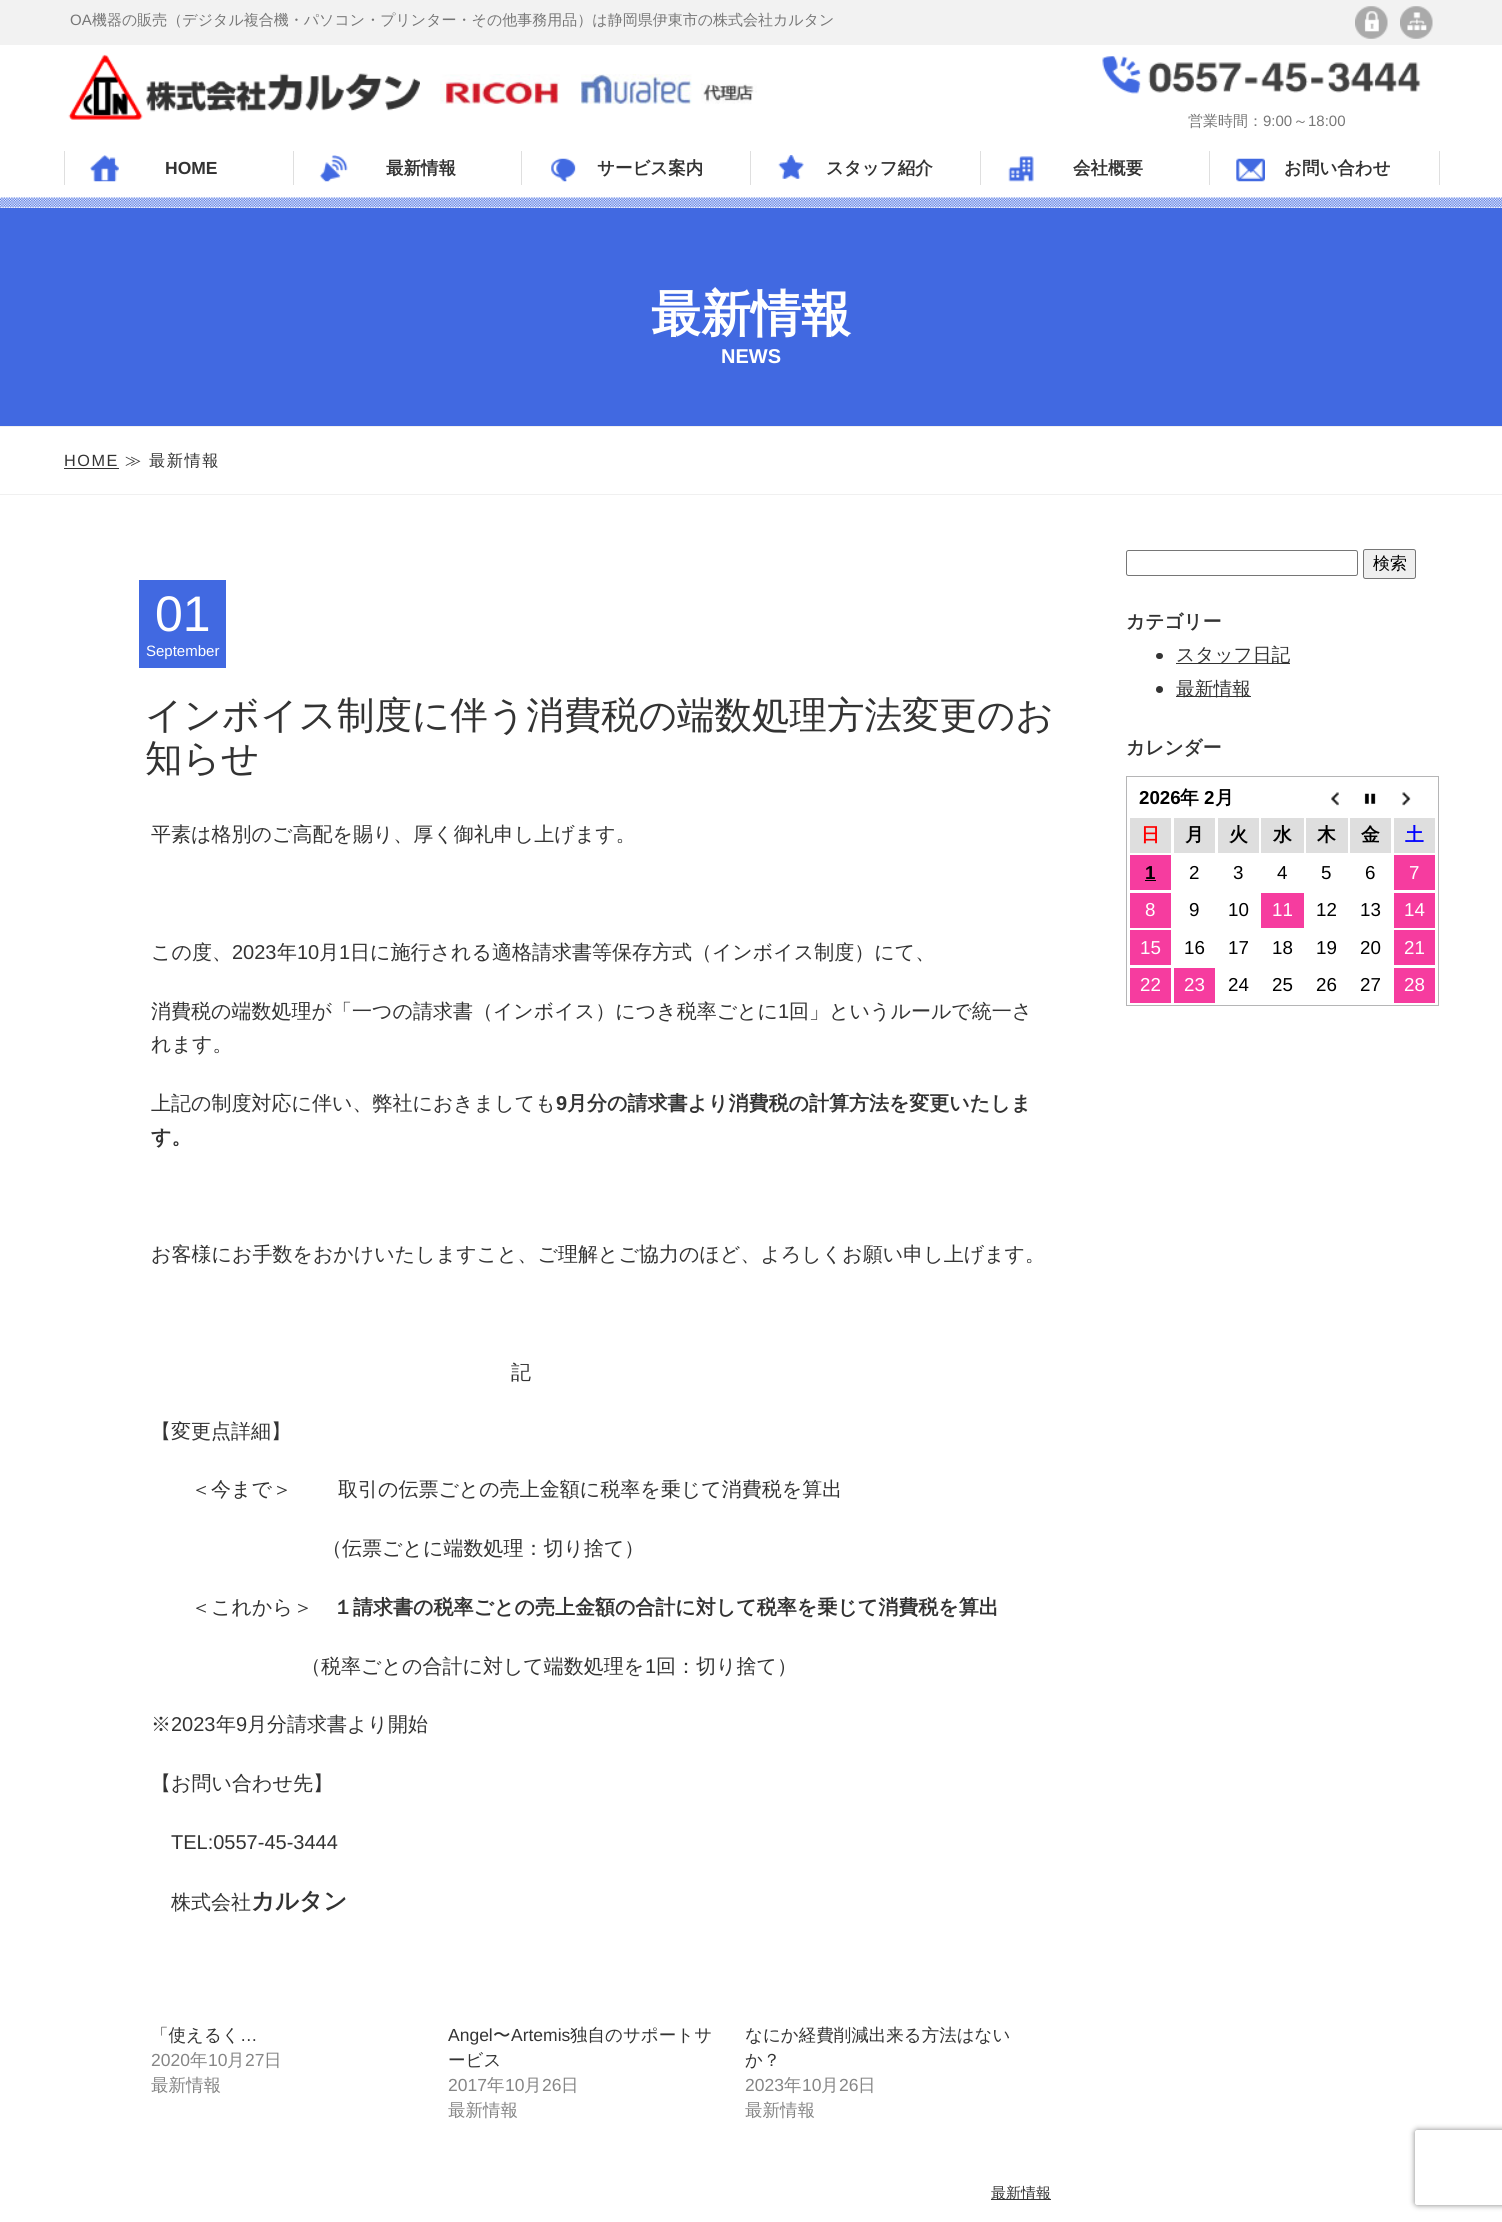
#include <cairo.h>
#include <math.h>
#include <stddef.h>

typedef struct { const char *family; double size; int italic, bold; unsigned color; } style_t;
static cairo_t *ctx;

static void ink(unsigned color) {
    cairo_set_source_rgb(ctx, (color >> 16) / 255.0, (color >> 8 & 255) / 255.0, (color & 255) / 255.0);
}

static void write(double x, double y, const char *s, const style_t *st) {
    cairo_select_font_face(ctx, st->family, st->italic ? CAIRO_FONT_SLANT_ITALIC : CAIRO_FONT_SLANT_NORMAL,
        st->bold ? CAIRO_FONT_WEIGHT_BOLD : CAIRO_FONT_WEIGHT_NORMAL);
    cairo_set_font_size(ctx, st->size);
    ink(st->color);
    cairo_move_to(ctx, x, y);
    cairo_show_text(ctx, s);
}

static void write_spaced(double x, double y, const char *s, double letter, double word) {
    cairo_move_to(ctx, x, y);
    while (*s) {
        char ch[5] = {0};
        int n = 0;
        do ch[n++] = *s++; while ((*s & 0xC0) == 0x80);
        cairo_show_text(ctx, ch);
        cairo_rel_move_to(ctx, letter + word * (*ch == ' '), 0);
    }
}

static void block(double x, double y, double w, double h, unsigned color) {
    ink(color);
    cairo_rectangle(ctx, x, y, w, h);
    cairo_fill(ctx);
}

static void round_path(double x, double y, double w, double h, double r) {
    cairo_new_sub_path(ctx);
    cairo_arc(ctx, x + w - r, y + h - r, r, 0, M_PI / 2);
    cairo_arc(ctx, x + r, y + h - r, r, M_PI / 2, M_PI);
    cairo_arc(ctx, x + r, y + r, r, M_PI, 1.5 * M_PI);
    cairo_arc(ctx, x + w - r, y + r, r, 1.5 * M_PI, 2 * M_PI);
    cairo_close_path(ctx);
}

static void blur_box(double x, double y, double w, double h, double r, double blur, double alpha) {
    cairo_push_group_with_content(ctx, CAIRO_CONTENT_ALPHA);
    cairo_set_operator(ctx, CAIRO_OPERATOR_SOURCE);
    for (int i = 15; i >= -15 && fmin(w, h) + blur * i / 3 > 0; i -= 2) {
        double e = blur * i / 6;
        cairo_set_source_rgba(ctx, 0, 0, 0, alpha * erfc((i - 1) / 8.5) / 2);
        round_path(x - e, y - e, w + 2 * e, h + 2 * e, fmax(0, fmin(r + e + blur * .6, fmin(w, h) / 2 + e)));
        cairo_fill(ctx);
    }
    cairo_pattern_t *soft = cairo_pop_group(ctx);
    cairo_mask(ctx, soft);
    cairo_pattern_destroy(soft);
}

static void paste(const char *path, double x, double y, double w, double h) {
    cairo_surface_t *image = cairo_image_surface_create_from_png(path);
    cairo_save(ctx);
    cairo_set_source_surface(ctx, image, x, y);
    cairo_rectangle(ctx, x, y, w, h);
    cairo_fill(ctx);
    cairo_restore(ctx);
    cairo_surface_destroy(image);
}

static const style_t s1 = {"Liberation Sans", 15, 0, 0, 0x777777};
static const style_t s2 = {"WenQuanYi Zen Hei Medium", 15, 0, 0, 0x777777};
static const style_t s3 = {"Liberation Sans", 17.5, 0, 1, 0x333333};
static const style_t s4 = {"WenQuanYi Zen Hei", 17.5, 0, 1, 0x333333};
static const style_t s5 = {"WenQuanYi Zen Hei", 50, 0, 1, 0xffffff};
static const style_t s6 = {"Liberation Sans", 20, 0, 1, 0xffffff};
static const style_t s7 = {"Liberation Sans", 50, 0, 0, 0xffffff};
static const style_t s8 = {"Liberation Sans", 15, 0, 0, 0xffffff};
static const style_t s9 = {"WenQuanYi Zen Hei Medium", 37.5, 0, 0, 0x333333};
static const style_t s10 = {"WenQuanYi Zen Hei Medium", 20, 0, 0, 0x333333};
static const style_t s11 = {"Liberation Sans", 20, 0, 0, 0x333333};
static const style_t s12 = {"Liberation Sans", 20, 0, 1, 0x333333};
static const style_t s13 = {"WenQuanYi Zen Hei", 20, 0, 1, 0x333333};
static const style_t s14 = {"WenQuanYi Zen Hei", 23.5, 0, 1, 0x333333};
static const style_t s15 = {"WenQuanYi Zen Hei Medium", 17.5, 0, 0, 0x333333};
static const style_t s16 = {"Liberation Sans", 17.5, 0, 0, 0x333333};
static const style_t s17 = {"Liberation Sans", 17.5, 0, 0, 0x858585};
static const style_t s18 = {"WenQuanYi Zen Hei Medium", 17.5, 0, 0, 0x858585};
static const style_t s19 = {"WenQuanYi Zen Hei Medium", 15, 0, 0, 0x333333};
static const style_t s20 = {"WenQuanYi Zen Hei Medium", 17, 0, 0, 0x000000};
static const style_t s21 = {"WenQuanYi Zen Hei", 18.75, 0, 1, 0x333333};
static const style_t s22 = {"WenQuanYi Zen Hei Medium", 18.75, 0, 0, 0x333333};
static const style_t s23 = {"Liberation Sans", 18.75, 0, 1, 0x000000};
static const style_t s24 = {"WenQuanYi Zen Hei", 18.75, 0, 1, 0x000000};
static const style_t s25 = {"WenQuanYi Zen Hei", 18.75, 0, 1, 0xff0000};
static const style_t s26 = {"WenQuanYi Zen Hei", 18.75, 0, 1, 0x0000ff};
static const style_t s27 = {"Liberation Sans", 18.75, 0, 0, 0x000000};
static const style_t s28 = {"Liberation Sans", 18.75, 0, 0, 0xffffff};

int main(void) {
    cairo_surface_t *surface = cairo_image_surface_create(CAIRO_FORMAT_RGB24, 1502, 2222);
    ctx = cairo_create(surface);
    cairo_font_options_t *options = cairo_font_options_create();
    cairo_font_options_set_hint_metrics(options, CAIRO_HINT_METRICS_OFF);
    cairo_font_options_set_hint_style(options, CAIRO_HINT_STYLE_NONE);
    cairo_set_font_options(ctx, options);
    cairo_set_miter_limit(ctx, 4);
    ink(0xffffff);
    cairo_paint(ctx);
    block(0, 0, 1502, 45, 0xf2f2f2);
    write(70, 25, "OA", &s1);
    write(92, 25, "機器の販売（デジタル複合機・パソコン・プリンター・その他事務用品）は静岡県伊東市の株式会社カルタン", &s2);
    paste("pic1.png", 1355, 6, 33, 33);
    paste("pic2.png", 1400, 6, 33, 33);
    paste("pic3.png", 68, 54, 352, 66);
    paste("pic4.png", 440, 74, 120, 30);
    paste("pic5.png", 581, 74, 176, 30);
    paste("pic6.png", 1102, 56, 319, 38);
    write(1188, 126, "営業時間：", &s2);
    write(1263, 126, "9:00", &s1);
    write(1293, 126, "～", &s2);
    write(1308, 126, "18:00", &s1);
    paste("pic7.png", 90, 155, 29, 27);
    block(64, 151, 1, 34, 0xdfdfdf);
    write(165, 174, "HOME", &s3);
    paste("pic8.png", 319, 155, 29, 27);
    block(293, 151, 1, 34, 0xdfdfdf);
    write(386, 174, "最新情報", &s4);
    paste("pic9.png", 551, 158, 25, 24);
    block(521, 151, 1, 34, 0xdfdfdf);
    write(597, 174, "サービス案内", &s4);
    paste("pic10.png", 778, 155, 26, 24);
    block(750, 151, 1, 34, 0xdfdfdf);
    write(826, 174, "スタッフ紹介", &s4);
    paste("pic11.png", 1008, 156, 26, 26);
    block(980, 151, 1, 34, 0xdfdfdf);
    write(1073, 174, "会社概要", &s4);
    paste("pic12.png", 1236, 158, 29, 24);
    block(1439, 151, 1, 34, 0xdfdfdf);
    block(1209, 151, 1, 34, 0xdfdfdf);
    write(1284, 174, "お問い合わせ", &s4);
    paste("pic13.png", 0, 197, 1502, 11);
    block(0, 208, 1502, 218, 0x4169e1);
    write(651, 331, "最新情報", &s5);
    write(721, 363, "NEWS", &s6);
    block(0, 426, 1502, 1, 0xf0f0f0);
    block(0, 494, 1502, 1, 0xf0f0f0);
    cairo_select_font_face(ctx, "Liberation Sans", CAIRO_FONT_SLANT_NORMAL, CAIRO_FONT_WEIGHT_NORMAL);
    cairo_set_font_size(ctx, 16.25);
    ink(0x333333);
    write_spaced(64, 466, "HOME", 1.5, 0);
    block(64, 468, 55, 1, 0x333333);
    cairo_select_font_face(ctx, "WenQuanYi Zen Hei Medium", CAIRO_FONT_SLANT_NORMAL, CAIRO_FONT_WEIGHT_NORMAL);
    write_spaced(125, 466, "≫ 最新情報", 1.5, 0);
    block(139, 580, 87, 88, 0x4169e1);
    write(155, 631, "01", &s7);
    write(146, 656, "September", &s8);
    write(145, 728, "インボイス制度に伴う消費税の端数処理方法変更のお", &s9);
    write(145, 771, "知らせ", &s9);
    write(151, 841, "平素は格別のご高配を賜り、厚く御礼申し上げます。", &s10);
    write(151, 959, "この度、", &s10);
    write(232, 959, "2023", &s11);
    write(277, 959, "年", &s10);
    write(297, 959, "10", &s11);
    write(319, 959, "月", &s10);
    write(339, 959, "1", &s11);
    write(350, 959, "日に施行される適格請求書等保存方式（インボイス制度）にて、", &s10);
    write(151, 1018, "消費税の端数処理が「一つの請求書（インボイス）につき税率ごとに", &s10);
    write(778, 1018, "1", &s11);
    write(789, 1018, "回」というルールで統一さ", &s10);
    write(151, 1051, "れます。", &s10);
    write(151, 1110, "上記の制度対応に伴い、弊社におきましても", &s10);
    write(556, 1110, "9", &s12);
    write(567, 1110, "月分の請求書より消費税の計算方法を変更いたしま", &s13);
    write(151, 1144, "す。", &s13);
    write(151, 1261, "お客様にお手数をおかけいたしますこと、ご理解とご協力のほど、よろしくお願い申し上げます。", &s10);
    write(511, 1379, "記", &s10);
    write(151, 1438, "【変更点詳細】", &s10);
    write(191, 1496, "＜今まで＞　　 取引の伝票ごとの売上金額に税率を乗じて消費税を算出", &s10);
    write(322, 1555, "（伝票ごとに端数処理：切り捨て）", &s10);
    write(191, 1614, "＜これから＞", &s10);
    write(333, 1614, "１請求書の税率ごとの売上金額の合計に対して税率を乗じて消費税を算出", &s13);
    write(301, 1673, "（税率ごとの合計に対して端数処理を", &s10);
    write(645, 1673, "1", &s11);
    write(656, 1673, "回：切り捨て）", &s10);
    write(151, 1731, "※", &s10);
    write(171, 1731, "2023", &s11);
    write(216, 1731, "年", &s10);
    write(236, 1731, "9", &s11);
    write(247, 1731, "月分請求書より開始", &s10);
    write(151, 1790, "【お問い合わせ先】", &s10);
    write(171, 1849, "TEL:0557-45-3444", &s11);
    write(171, 1909, "株式会社", &s10);
    write(251, 1909, "カルタン", &s14);
    write(151, 2041, "「使えるく", &s15);
    write(240, 2041, "…", &s16);
    write(151, 2066, "2020", &s17);
    write(190, 2066, "年", &s18);
    write(208, 2066, "10", &s17);
    write(227, 2066, "月", &s18);
    write(245, 2066, "27", &s17);
    write(264, 2066, "日", &s18);
    write(151, 2091, "最新情報", &s18);
    write(448, 2041, "Angel", &s16);
    write(493, 2041, "〜", &s15);
    write(511, 2041, "Artemis", &s16);
    write(570, 2041, "独自のサポートサ", &s15);
    write(448, 2066, "ービス", &s15);
    write(448, 2091, "2017", &s17);
    write(487, 2091, "年", &s18);
    write(505, 2091, "10", &s17);
    write(524, 2091, "月", &s18);
    write(542, 2091, "26", &s17);
    write(561, 2091, "日", &s18);
    write(448, 2116, "最新情報", &s18);
    write(745, 2041, "なにか経費削減出来る方法はない", &s15);
    write(745, 2066, "か？", &s15);
    write(745, 2091, "2023", &s17);
    write(784, 2091, "年", &s18);
    write(802, 2091, "10", &s17);
    write(821, 2091, "月", &s18);
    write(839, 2091, "26", &s17);
    write(858, 2091, "日", &s18);
    write(745, 2116, "最新情報", &s18);
    block(991, 2199, 60, 1, 0x333333);
    write(991, 2198, "最新情報", &s19);
    round_path(1126.5, 550.5, 231, 25, 2);
    ink(0x767676);
    cairo_set_line_width(ctx, 1);
    cairo_stroke(ctx);
    ink(0xefefef);
    round_path(1363.5, 549.5, 52, 29, 2);
    cairo_fill_preserve(ctx);
    ink(0x767676);
    cairo_stroke(ctx);
    write(1373, 569, "検索", &s20);
    write(1126, 628, "カテゴリー", &s21);
    round_path(1156, 653, 7, 6, 3);
    cairo_fill(ctx);
    block(1176, 663, 114, 1, 0x333333);
    write(1176, 661, "スタッフ日記", &s22);
    cairo_new_path(ctx);
    cairo_arc(ctx, 1159.5, 689.5, 3.5, 0, 2 * M_PI);
    cairo_fill(ctx);
    block(1176, 696, 75, 1, 0x333333);
    write(1176, 695, "最新情報", &s22);
    write(1126, 754, "カレンダー", &s21);
    cairo_rectangle(ctx, 1126.5, 776.5, 312, 229);
    ink(0xb5b5b6);
    cairo_stroke(ctx);
    write(1139, 804, "2026", &s23);
    write(1180, 804, "年", &s24);
    write(1204, 804, "2", &s23);
    write(1215, 804, "月", &s24);
    paste("pic14.png", 1331, 792, 8, 14);
    paste("pic15.png", 1364, 793, 12, 11);
    paste("pic16.png", 1402, 792, 9, 14);
    block(1130, 818, 41, 35, 0xdedede);
    write(1141, 841, "日", &s25);
    block(1174, 818, 41, 35, 0xdedede);
    write(1185, 841, "月", &s24);
    block(1218, 818, 41, 35, 0xdedede);
    write(1229, 841, "火", &s24);
    block(1261, 818, 43, 35, 0xdedede);
    write(1273, 841, "水", &s24);
    block(1306, 818, 42, 35, 0xdedede);
    write(1317, 841, "木", &s24);
    block(1350, 818, 41, 35, 0xdedede);
    write(1361, 841, "金", &s24);
    block(1394, 818, 41, 35, 0xdedede);
    write(1405, 841, "土", &s26);
    block(1130, 855, 41, 35, 0xf63c9f);
    write(1145, 879, "1", &s23);
    block(1145, 880, 11, 1, 0x000000);
    write(1189, 879, "2", &s27);
    write(1233, 879, "3", &s27);
    write(1277, 879, "4", &s27);
    write(1321, 879, "5", &s27);
    write(1365, 879, "6", &s27);
    block(1394, 855, 41, 35, 0xf63c9f);
    write(1409, 879, "7", &s28);
    block(1130, 893, 41, 35, 0xf63c9f);
    write(1145, 916, "8", &s28);
    write(1189, 916, "9", &s27);
    write(1228, 916, "10", &s27);
    block(1261, 893, 43, 35, 0xf63c9f);
    write(1272, 916, "11", &s28);
    write(1316, 916, "12", &s27);
    write(1360, 916, "13", &s27);
    block(1394, 893, 41, 35, 0xf63c9f);
    write(1404, 916, "14", &s28);
    block(1130, 930, 41, 35, 0xf63c9f);
    write(1140, 954, "15", &s28);
    write(1184, 954, "16", &s27);
    write(1228, 954, "17", &s27);
    write(1272, 954, "18", &s27);
    write(1316, 954, "19", &s27);
    write(1360, 954, "20", &s27);
    block(1394, 930, 41, 35, 0xf63c9f);
    write(1404, 954, "21", &s28);
    block(1130, 968, 41, 35, 0xf63c9f);
    write(1140, 991, "22", &s28);
    block(1174, 968, 41, 35, 0xf63c9f);
    write(1184, 991, "23", &s28);
    write(1228, 991, "24", &s27);
    write(1272, 991, "25", &s27);
    write(1316, 991, "26", &s27);
    write(1360, 991, "27", &s27);
    block(1394, 968, 41, 35, 0xf63c9f);
    write(1404, 991, "28", &s28);
    cairo_save(ctx);
    cairo_set_fill_rule(ctx, CAIRO_FILL_RULE_EVEN_ODD);
    cairo_new_path(ctx);
    cairo_move_to(ctx, 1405, 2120);
    cairo_line_to(ctx, 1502, 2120);
    cairo_line_to(ctx, 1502, 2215);
    cairo_line_to(ctx, 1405, 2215);
    cairo_close_path(ctx);
    cairo_move_to(ctx, 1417.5, 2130);
    cairo_line_to(ctx, 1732.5, 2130);
    cairo_curve_to(ctx, 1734, 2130, 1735, 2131, 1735, 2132.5);
    cairo_line_to(ctx, 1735, 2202.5);
    cairo_curve_to(ctx, 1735, 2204, 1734, 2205, 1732.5, 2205);
    cairo_line_to(ctx, 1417.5, 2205);
    cairo_curve_to(ctx, 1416, 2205, 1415, 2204, 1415, 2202.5);
    cairo_line_to(ctx, 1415, 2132.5);
    cairo_curve_to(ctx, 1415, 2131, 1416, 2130, 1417.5, 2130);
    cairo_close_path(ctx);
    cairo_clip(ctx);
    ink(0x808080);
    blur_box(1415, 2130, 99, 75, 2.5, 3, 1);
    cairo_restore(ctx);
    cairo_surface_write_to_png(surface, "screenshot.png");
    cairo_font_options_destroy(options);
    cairo_destroy(ctx);
    cairo_surface_destroy(surface);
    return 0;
}
